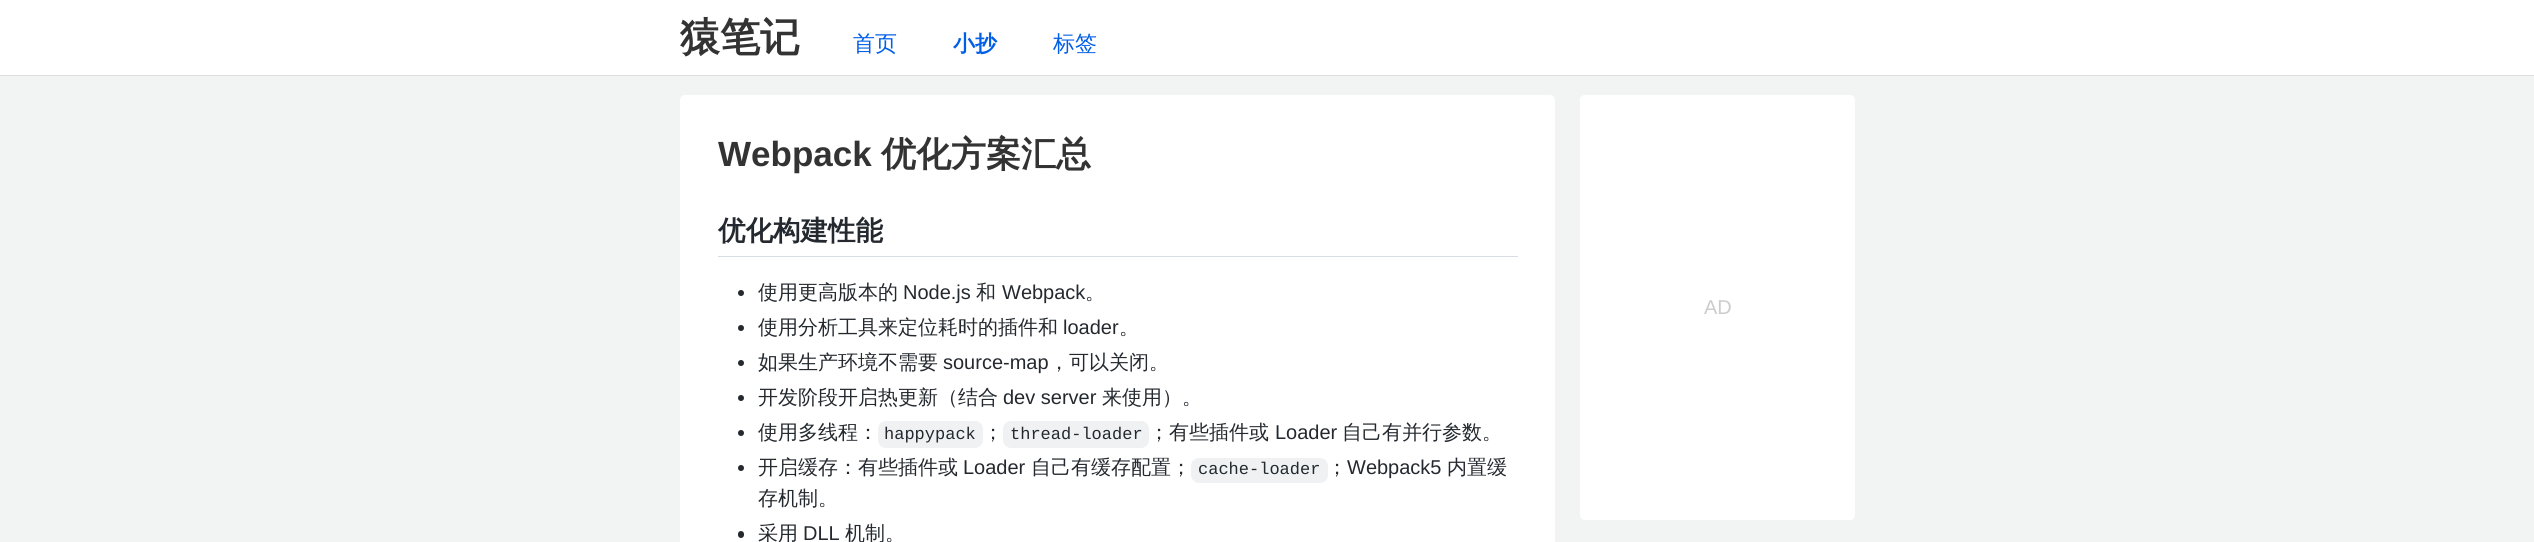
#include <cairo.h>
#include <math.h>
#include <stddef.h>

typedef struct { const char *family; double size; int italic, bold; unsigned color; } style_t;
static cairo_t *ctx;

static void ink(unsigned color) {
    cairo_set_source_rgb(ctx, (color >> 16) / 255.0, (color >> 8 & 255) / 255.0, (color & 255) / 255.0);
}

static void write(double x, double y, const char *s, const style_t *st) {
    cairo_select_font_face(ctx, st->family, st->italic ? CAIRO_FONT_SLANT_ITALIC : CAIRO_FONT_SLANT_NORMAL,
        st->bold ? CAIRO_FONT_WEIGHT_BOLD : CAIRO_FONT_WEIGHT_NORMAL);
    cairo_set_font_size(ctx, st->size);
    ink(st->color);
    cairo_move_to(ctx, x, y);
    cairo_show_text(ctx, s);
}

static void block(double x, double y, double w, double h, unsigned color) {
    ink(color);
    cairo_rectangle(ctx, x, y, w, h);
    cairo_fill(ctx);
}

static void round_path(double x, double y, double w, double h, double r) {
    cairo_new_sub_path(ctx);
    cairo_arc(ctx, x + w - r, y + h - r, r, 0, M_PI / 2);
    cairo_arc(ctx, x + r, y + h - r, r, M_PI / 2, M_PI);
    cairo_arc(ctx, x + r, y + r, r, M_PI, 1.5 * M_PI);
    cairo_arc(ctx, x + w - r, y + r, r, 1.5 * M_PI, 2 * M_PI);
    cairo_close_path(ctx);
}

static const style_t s1 = {"WenQuanYi Zen Hei", 40, 0, 1, 0x333333};
static const style_t s2 = {"WenQuanYi Zen Hei Medium", 22, 0, 0, 0x015ee7};
static const style_t s3 = {"WenQuanYi Zen Hei", 22, 0, 1, 0x015ee7};
static const style_t s4 = {"Liberation Sans", 35, 0, 1, 0x333333};
static const style_t s5 = {"WenQuanYi Zen Hei", 35, 0, 1, 0x333333};
static const style_t s6 = {"WenQuanYi Zen Hei", 27.5, 0, 1, 0x24292f};
static const style_t s7 = {"WenQuanYi Zen Hei Medium", 20, 0, 0, 0x24292f};
static const style_t s8 = {"Liberation Sans", 20, 0, 0, 0x24292f};
static const style_t s9 = {"Liberation Mono", 17, 0, 0, 0x24292f};
static const style_t s10 = {"Liberation Sans", 20, 0, 0, 0xcccccc};

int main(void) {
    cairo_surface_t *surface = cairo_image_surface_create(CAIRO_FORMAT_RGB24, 2534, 542);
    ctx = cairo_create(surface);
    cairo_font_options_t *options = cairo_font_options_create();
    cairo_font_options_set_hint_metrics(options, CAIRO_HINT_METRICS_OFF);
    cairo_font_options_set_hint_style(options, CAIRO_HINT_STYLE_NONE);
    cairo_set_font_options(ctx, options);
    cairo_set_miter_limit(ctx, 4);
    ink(0xf2f3f3);
    cairo_paint(ctx);
    block(0, 0, 2534, 75, 0xffffff);
    block(0, 75, 2534, 1, 0xdddddd);
    write(680, 51, "猿笔记", &s1);
    write(853, 51, "首页", &s2);
    write(953, 51, "小抄", &s3);
    write(1053, 51, "标签", &s2);
    ink(0xffffff);
    round_path(680, 95, 875, 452, 5);
    cairo_fill(ctx);
    write(718, 166, "Webpack", &s4);
    write(881, 166, "优化方案汇总", &s5);
    block(718, 256, 800, 1, 0xd8dee4);
    write(718, 240, "优化构建性能", &s6);
    cairo_new_path(ctx);
    cairo_arc(ctx, 741, 293, 3, 0, 2 * M_PI);
    cairo_fill(ctx);
    write(758, 299, "使用更高版本的", &s7);
    write(903, 299, "Node.js", &s8);
    write(976, 299, "和", &s7);
    write(1002, 299, "Webpack", &s8);
    write(1085, 299, "。", &s7);
    cairo_new_path(ctx);
    cairo_arc(ctx, 741, 328, 3, 0, 2 * M_PI);
    cairo_fill(ctx);
    write(758, 334, "使用分析工具来定位耗时的插件和", &s7);
    write(1063, 334, "loader", &s8);
    write(1119, 334, "。", &s7);
    cairo_new_path(ctx);
    cairo_arc(ctx, 741, 363, 3, 0, 2 * M_PI);
    cairo_fill(ctx);
    write(758, 369, "如果生产环境不需要", &s7);
    write(943, 369, "source-map", &s8);
    write(1049, 369, "，可以关闭。", &s7);
    cairo_new_path(ctx);
    cairo_arc(ctx, 741, 398, 3, 0, 2 * M_PI);
    cairo_fill(ctx);
    write(758, 404, "开发阶段开启热更新（结合", &s7);
    write(1003, 404, "dev server", &s8);
    write(1102, 404, "来使用）。", &s7);
    cairo_new_path(ctx);
    cairo_arc(ctx, 741, 433, 3, 0, 2 * M_PI);
    cairo_fill(ctx);
    write(758, 439, "使用多线程：", &s7);
    ink(0xeff1f3);
    round_path(878, 421, 105, 27, 8);
    cairo_fill(ctx);
    write(884, 439, "happypack", &s9);
    write(983, 439, "；", &s7);
    ink(0xeff1f3);
    round_path(1003, 421, 146, 27, 8);
    cairo_fill(ctx);
    write(1010, 439, "thread-loader", &s9);
    write(1149, 439, "；有些插件或", &s7);
    write(1275, 439, "Loader", &s8);
    write(1342, 439, "自己有并行参数。", &s7);
    cairo_new_path(ctx);
    cairo_arc(ctx, 741, 468, 3, 0, 2 * M_PI);
    cairo_fill(ctx);
    write(758, 474, "开启缓存：有些插件或", &s7);
    write(963, 474, "Loader", &s8);
    write(1031, 474, "自己有缓存配置；", &s7);
    ink(0xeff1f3);
    round_path(1191, 458, 137, 25, 8);
    cairo_fill(ctx);
    write(1198, 474, "cache-loader", &s9);
    write(1327, 474, "；", &s7);
    write(1347, 474, "Webpack5", &s8);
    write(1447, 474, "内置缓", &s7);
    write(758, 505, "存机制。", &s7);
    round_path(738, 531, 6, 7, 3);
    cairo_fill(ctx);
    write(758, 540, "采用", &s7);
    write(803, 540, "DLL", &s8);
    write(845, 540, "机制。", &s7);
    ink(0xffffff);
    round_path(1580, 95, 275, 425, 5);
    cairo_fill(ctx);
    write(1704, 314, "AD", &s10);
    cairo_surface_write_to_png(surface, "screenshot.png");
    cairo_font_options_destroy(options);
    cairo_destroy(ctx);
    cairo_surface_destroy(surface);
    return 0;
}
